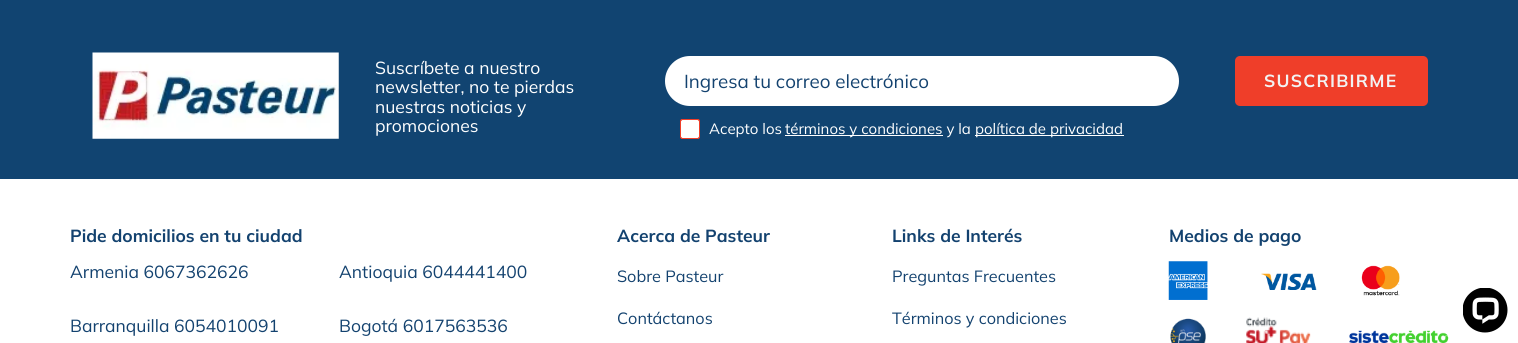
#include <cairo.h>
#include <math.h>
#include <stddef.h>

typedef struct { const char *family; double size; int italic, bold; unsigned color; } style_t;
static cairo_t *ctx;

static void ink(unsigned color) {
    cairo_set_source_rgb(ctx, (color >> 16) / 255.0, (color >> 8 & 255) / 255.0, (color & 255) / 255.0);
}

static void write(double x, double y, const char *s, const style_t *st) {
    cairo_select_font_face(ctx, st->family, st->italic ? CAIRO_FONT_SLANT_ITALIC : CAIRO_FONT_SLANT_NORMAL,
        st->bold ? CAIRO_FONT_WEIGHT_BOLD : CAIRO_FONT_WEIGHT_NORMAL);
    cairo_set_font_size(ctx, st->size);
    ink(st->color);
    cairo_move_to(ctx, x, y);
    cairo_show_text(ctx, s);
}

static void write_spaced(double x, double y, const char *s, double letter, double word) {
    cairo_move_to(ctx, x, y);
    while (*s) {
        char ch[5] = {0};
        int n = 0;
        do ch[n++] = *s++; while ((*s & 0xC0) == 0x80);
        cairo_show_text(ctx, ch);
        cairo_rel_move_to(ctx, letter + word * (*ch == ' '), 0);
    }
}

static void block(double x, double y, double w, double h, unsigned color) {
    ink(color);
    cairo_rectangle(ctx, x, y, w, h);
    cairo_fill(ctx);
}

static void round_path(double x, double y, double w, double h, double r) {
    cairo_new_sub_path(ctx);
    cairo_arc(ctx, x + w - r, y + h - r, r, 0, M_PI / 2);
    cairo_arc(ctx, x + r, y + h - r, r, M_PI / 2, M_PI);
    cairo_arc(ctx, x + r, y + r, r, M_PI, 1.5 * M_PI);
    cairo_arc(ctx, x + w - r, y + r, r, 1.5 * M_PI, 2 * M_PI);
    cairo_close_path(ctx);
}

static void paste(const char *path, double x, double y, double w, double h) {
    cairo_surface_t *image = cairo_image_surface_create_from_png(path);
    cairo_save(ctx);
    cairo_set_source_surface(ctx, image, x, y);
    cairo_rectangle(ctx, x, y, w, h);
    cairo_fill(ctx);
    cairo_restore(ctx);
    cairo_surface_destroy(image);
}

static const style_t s1 = {"Mulish", 17.5, 0, 0, 0xffffff};
static const style_t s2 = {"Mulish", 18.75, 0, 0, 0x13426f};
static const style_t s3 = {"Mulish", 15, 0, 0, 0xffffff};
static const style_t s4 = {"Mulish", 17.5, 0, 1, 0x13426f};
static const style_t s5 = {"Mulish", 17.5, 0, 0, 0x13426f};
static const style_t s6 = {"Mulish", 16.25, 0, 0, 0x13426f};

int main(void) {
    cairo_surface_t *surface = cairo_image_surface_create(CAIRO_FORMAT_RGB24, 1518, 343);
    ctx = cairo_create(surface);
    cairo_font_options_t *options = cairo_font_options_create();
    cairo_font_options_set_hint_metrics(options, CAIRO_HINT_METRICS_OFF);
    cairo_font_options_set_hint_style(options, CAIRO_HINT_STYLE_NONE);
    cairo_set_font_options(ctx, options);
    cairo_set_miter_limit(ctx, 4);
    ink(0xffffff);
    cairo_paint(ctx);
    block(0, 0, 1518, 179, 0x114471);
    paste("pic1.png", 92, 52, 247, 87);
    write(375, 74, "Suscríbete a nuestro", &s1);
    write(375, 93, "newsletter, no te pierdas", &s1);
    write(375, 113, "nuestras noticias y", &s1);
    write(375, 132, "promociones", &s1);
    round_path(665, 56, 514, 50, 25);
    cairo_fill(ctx);
    write(684, 88, "Ingresa tu correo electrónico", &s2);
    ink(0xef3e29);
    round_path(1235, 56, 193, 50, 5);
    cairo_fill(ctx);
    cairo_select_font_face(ctx, "Mulish", CAIRO_FONT_SLANT_NORMAL, CAIRO_FONT_WEIGHT_BOLD);
    cairo_set_font_size(ctx, 17.5);
    ink(0xf2f2f2);
    write_spaced(1264, 87, "SUSCRIBIRME", 1.25, 0);
    ink(0xffffff);
    round_path(680.5, 119.5, 19, 19, 2);
    cairo_fill_preserve(ctx);
    ink(0xef3e29);
    cairo_set_line_width(ctx, 1);
    cairo_stroke(ctx);
    round_path(680.5, 119.5, 19, 19, 2);
    cairo_stroke(ctx);
    write(709, 134, "Acepto los", &s3);
    block(785, 135, 158, 1, 0xffffff);
    write(785, 134, "términos y condiciones y la", &s3);
    block(975, 135, 149, 1, 0xffffff);
    write(975, 134, "política de privacidad", &s3);
    write(70, 242, "Pide domicilios en tu ciudad", &s4);
    write(70, 278, "Armenia 6067362626", &s5);
    write(339, 278, "Antioquia 6044441400", &s5);
    write(70, 332, "Barranquilla 6054010091", &s5);
    write(339, 332, "Bogotá 6017563536", &s5);
    write(617, 242, "Acerca de Pasteur", &s4);
    write(617, 282, "Sobre Pasteur", &s6);
    write(617, 324, "Contáctanos", &s6);
    write(892, 242, "Links de Interés", &s4);
    write(892, 282, "Preguntas Frecuentes", &s6);
    write(892, 324, "Términos y condiciones", &s6);
    write(1169, 242, "Medios de pago", &s4);
    paste("pic2.png", 1168, 261, 40, 39);
    paste("pic3.png", 1261, 273, 56, 17);
    paste("pic4.png", 1361, 265, 39, 31);
    paste("pic5.png", 1170, 318, 36, 25);
    paste("pic6.png", 1246, 317, 65, 26);
    paste("pic7.png", 1349, 330, 100, 13);
    paste("pic8.png", 1463, 288, 45, 45);
    cairo_surface_write_to_png(surface, "screenshot.png");
    cairo_font_options_destroy(options);
    cairo_destroy(ctx);
    cairo_surface_destroy(surface);
    return 0;
}
